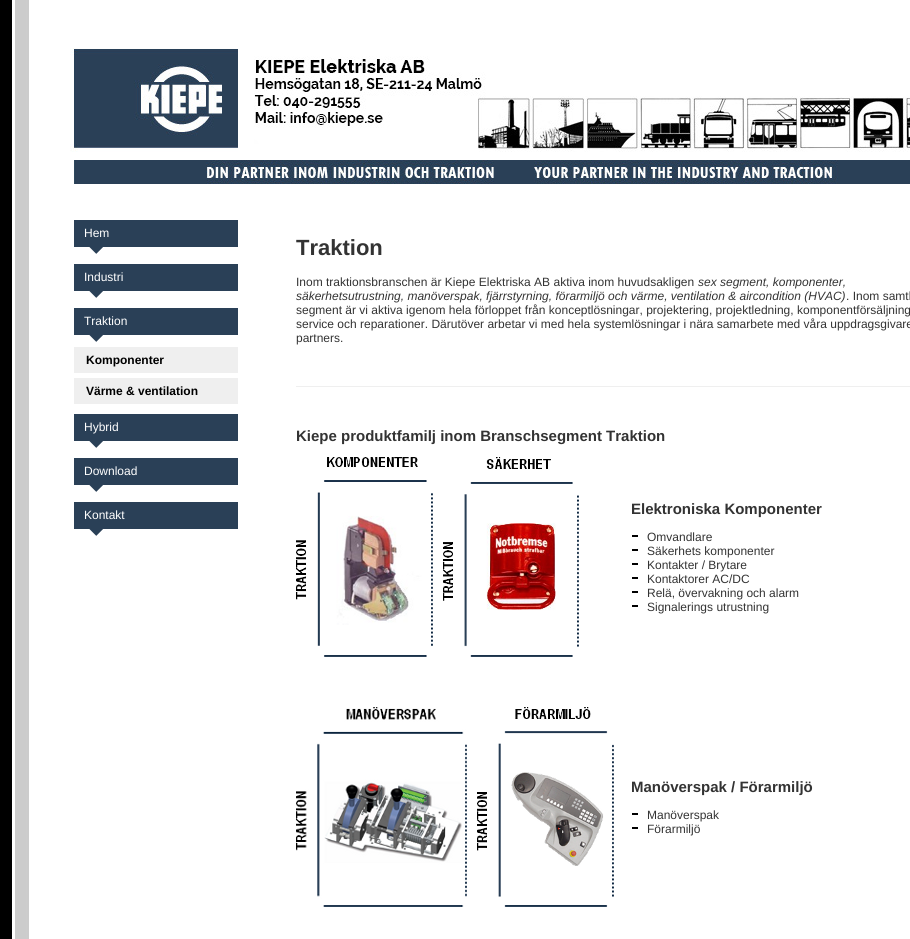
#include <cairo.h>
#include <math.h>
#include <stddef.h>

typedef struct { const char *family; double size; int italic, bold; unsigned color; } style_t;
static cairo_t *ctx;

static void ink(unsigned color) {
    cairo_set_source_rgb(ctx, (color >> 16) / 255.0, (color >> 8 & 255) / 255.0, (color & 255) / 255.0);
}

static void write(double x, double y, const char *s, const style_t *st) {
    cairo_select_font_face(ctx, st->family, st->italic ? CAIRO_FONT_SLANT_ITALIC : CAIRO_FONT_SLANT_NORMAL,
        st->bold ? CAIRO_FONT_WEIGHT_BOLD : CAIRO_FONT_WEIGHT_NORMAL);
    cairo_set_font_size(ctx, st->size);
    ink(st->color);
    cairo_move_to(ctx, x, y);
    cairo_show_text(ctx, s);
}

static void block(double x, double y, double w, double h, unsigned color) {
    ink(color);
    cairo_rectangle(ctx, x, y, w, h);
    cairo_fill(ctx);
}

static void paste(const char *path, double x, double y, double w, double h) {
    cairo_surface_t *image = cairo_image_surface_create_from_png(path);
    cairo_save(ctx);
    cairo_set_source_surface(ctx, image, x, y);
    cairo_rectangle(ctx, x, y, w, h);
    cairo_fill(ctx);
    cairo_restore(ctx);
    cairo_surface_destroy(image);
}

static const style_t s1 = {"Liberation Sans", 12, 0, 0, 0xffffff};
static const style_t s2 = {"Liberation Sans", 12, 0, 1, 0x000000};
static const style_t s3 = {"Liberation Sans", 22, 0, 1, 0x333333};
static const style_t s4 = {"Liberation Sans", 12, 0, 0, 0x333333};
static const style_t s5 = {"Liberation Sans", 12, 1, 0, 0x333333};
static const style_t s6 = {"Liberation Sans", 15, 0, 1, 0x333333};

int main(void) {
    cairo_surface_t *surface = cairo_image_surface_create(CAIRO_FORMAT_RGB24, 910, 939);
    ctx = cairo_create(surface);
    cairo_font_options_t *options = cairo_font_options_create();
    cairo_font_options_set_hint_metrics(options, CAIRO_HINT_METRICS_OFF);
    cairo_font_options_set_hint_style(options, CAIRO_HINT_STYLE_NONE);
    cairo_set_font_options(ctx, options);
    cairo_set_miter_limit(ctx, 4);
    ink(0xffffff);
    cairo_paint(ctx);
    paste("pic1.png", 0, 0, 29, 939);
    paste("pic2.png", 70, 48, 840, 136);
    paste("pic3.png", 74, 220, 164, 34);
    write(84, 237, "Hem", &s1);
    paste("pic3.png", 74, 264, 164, 34);
    write(84, 281, "Industri", &s1);
    paste("pic3.png", 74, 308, 164, 34);
    write(84, 325, "Traktion", &s1);
    block(74, 347, 164, 26, 0xefefef);
    write(86, 364, "Komponenter", &s2);
    block(74, 378, 164, 26, 0xefefef);
    write(86, 395, "Värme & ventilation", &s2);
    paste("pic3.png", 74, 414, 164, 34);
    write(84, 431, "Hybrid", &s1);
    paste("pic3.png", 74, 458, 164, 34);
    write(84, 475, "Download", &s1);
    paste("pic3.png", 74, 502, 164, 34);
    write(84, 519, "Kontakt", &s1);
    write(296, 255, "Traktion", &s3);
    write(296, 286, "Inom traktionsbranschen är Kiepe Elektriska AB aktiva inom huvudsakligen", &s4);
    write(698, 286, "sex segment, komponenter,", &s5);
    write(296, 300, "säkerhetsutrustning, manöverspak, fjärrstyrning, förarmiljö och värme, ventilation & aircondition (HVAC)", &s5);
    write(846, 300, ". Inom samtl", &s4);
    write(296, 314, "segment är vi aktiva igenom hela förloppet från konceptlösningar, projektering, projektledning, komponentförsäljning", &s4);
    write(296, 328, "service och reparationer. Därutöver arbetar vi med hela systemlösningar i nära samarbete med våra uppdragsgivare", &s4);
    write(296, 342, "partners.", &s4);
    block(296, 386, 614, 1, 0xefefef);
    write(296, 441, "Kiepe produktfamilj inom Branschsegment Traktion", &s6);
    paste("pic4.png", 296, 457, 137, 200);
    paste("pic5.png", 443, 457, 136, 200);
    write(631, 514, "Elektroniska Komponenter", &s6);
    block(632, 535, 6, 2, 0x000000);
    write(647, 541, "Omvandlare", &s4);
    block(632, 549, 6, 2, 0x000000);
    write(647, 555, "Säkerhets komponenter", &s4);
    block(632, 563, 6, 2, 0x000000);
    write(647, 569, "Kontakter / Brytare", &s4);
    block(632, 577, 6, 2, 0x000000);
    write(647, 583, "Kontaktorer AC/DC", &s4);
    block(632, 591, 6, 2, 0x000000);
    write(647, 597, "Relä, övervakning och alarm", &s4);
    block(632, 605, 6, 2, 0x000000);
    write(647, 611, "Signalerings utrustning", &s4);
    paste("pic6.png", 296, 707, 171, 200);
    paste("pic7.png", 477, 707, 137, 200);
    write(631, 792, "Manöverspak / Förarmiljö", &s6);
    block(632, 813, 6, 2, 0x000000);
    write(647, 819, "Manöverspak", &s4);
    block(632, 827, 6, 2, 0x000000);
    write(647, 833, "Förarmiljö", &s4);
    cairo_surface_write_to_png(surface, "screenshot.png");
    cairo_font_options_destroy(options);
    cairo_destroy(ctx);
    cairo_surface_destroy(surface);
    return 0;
}
